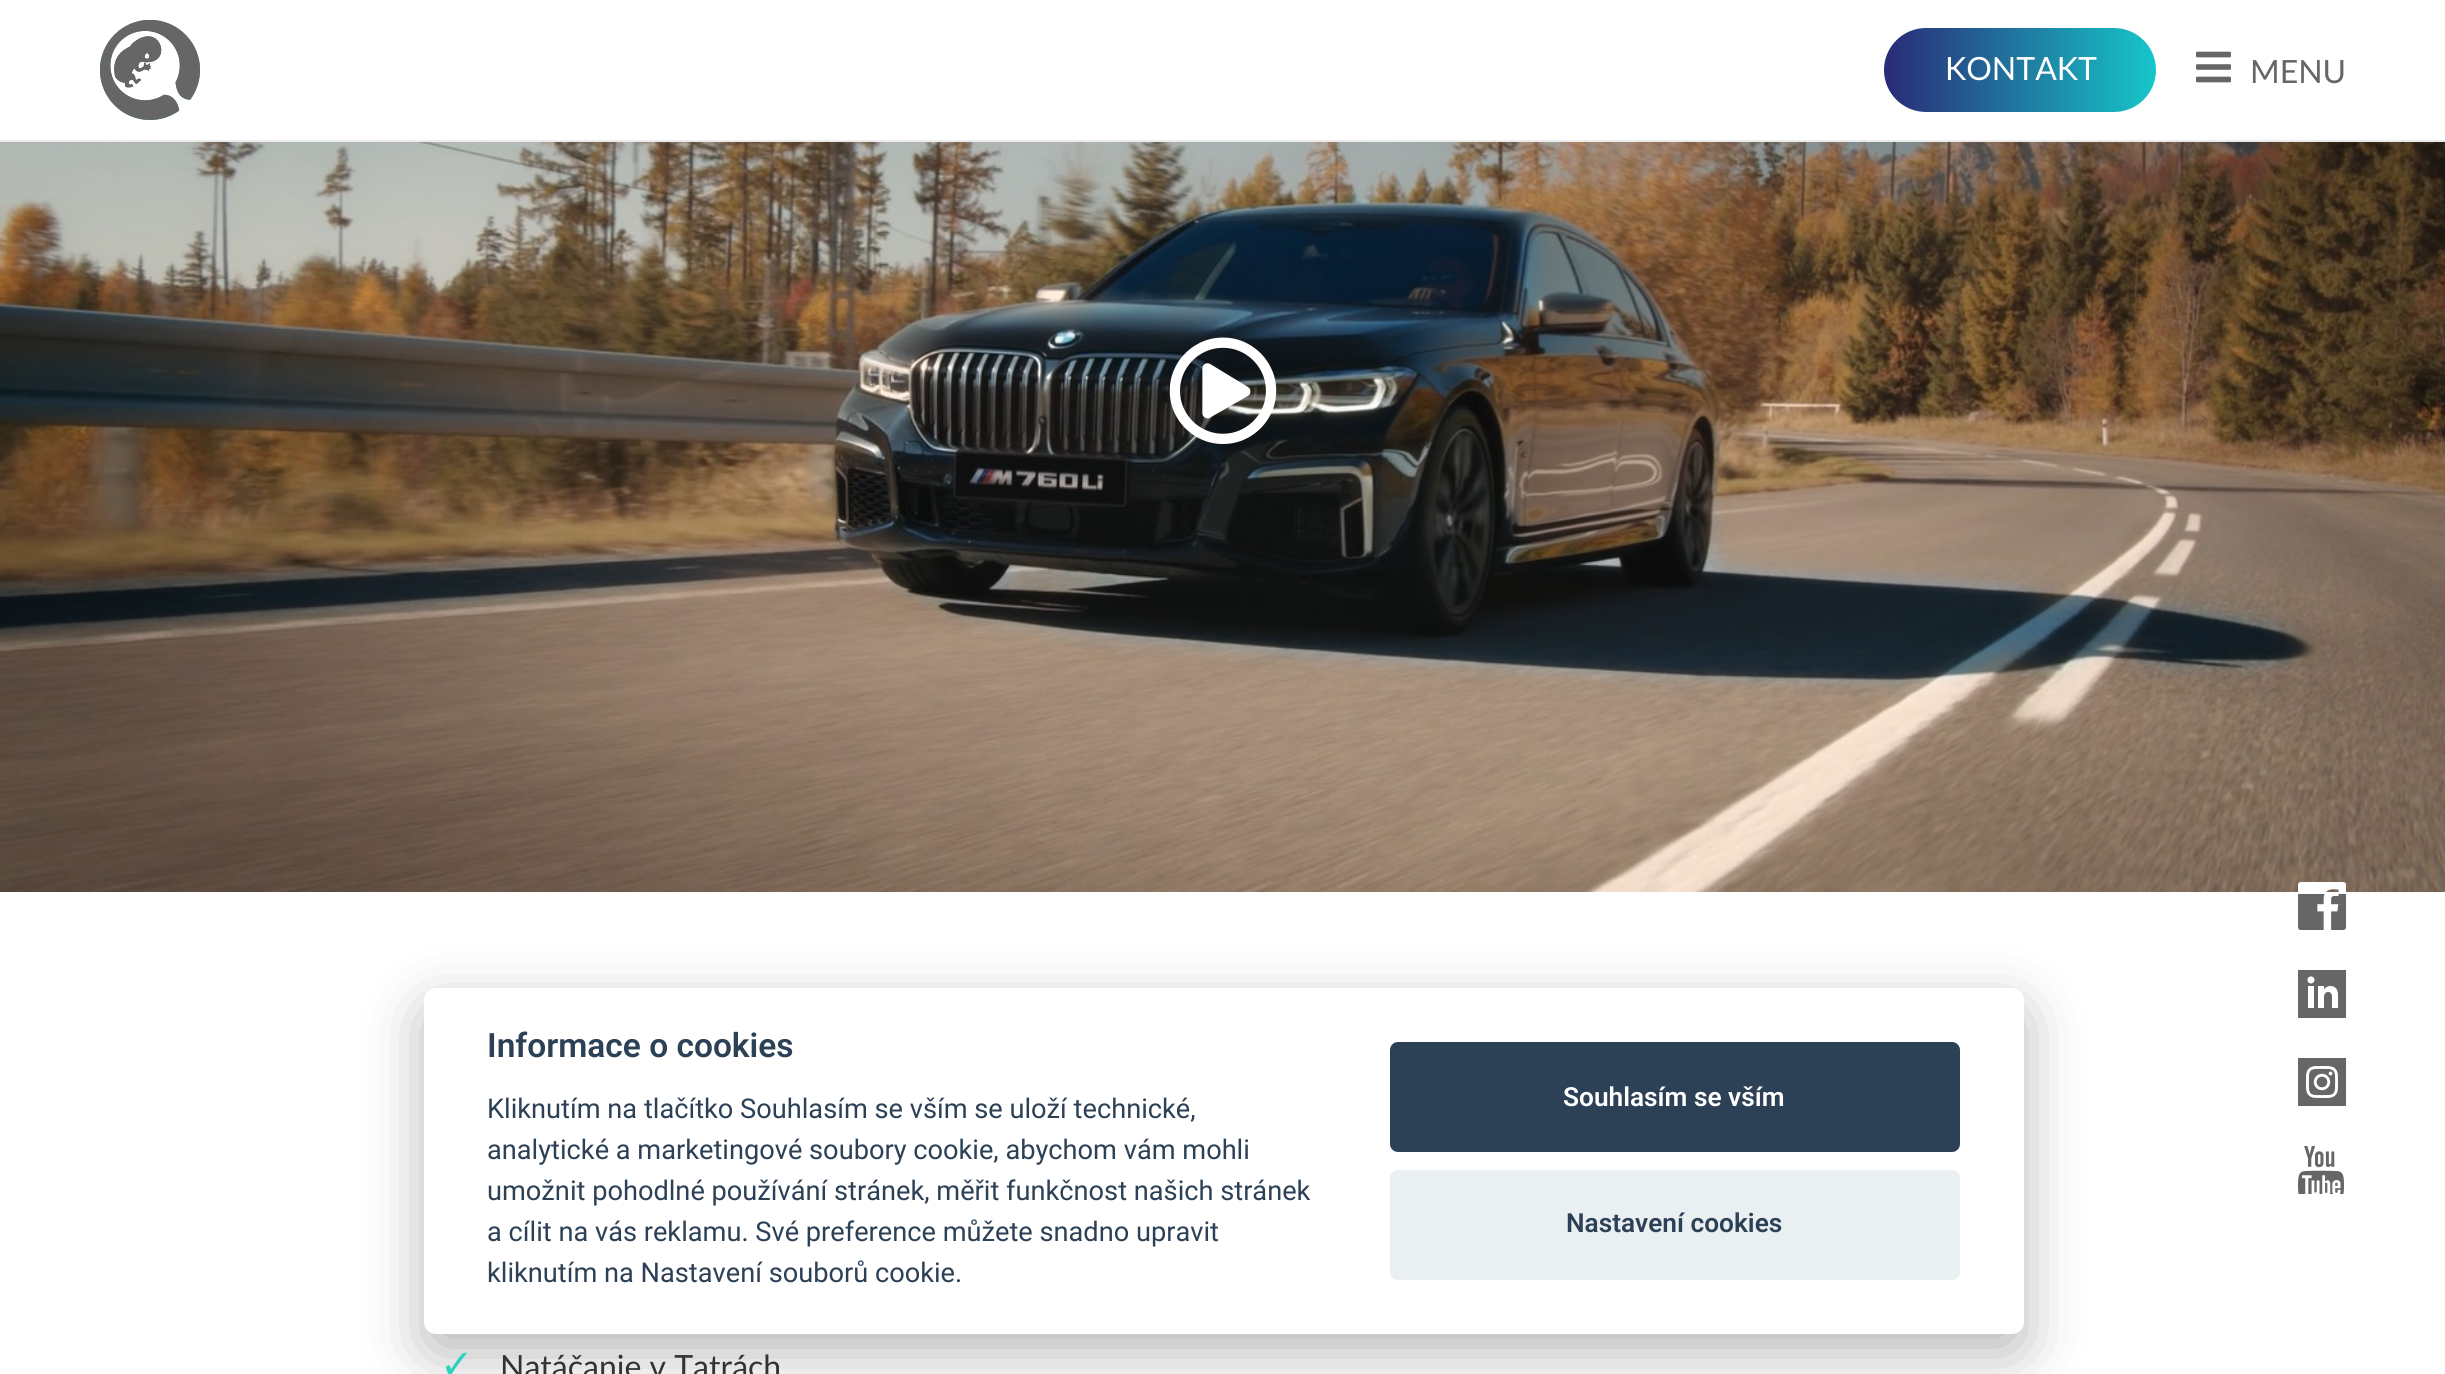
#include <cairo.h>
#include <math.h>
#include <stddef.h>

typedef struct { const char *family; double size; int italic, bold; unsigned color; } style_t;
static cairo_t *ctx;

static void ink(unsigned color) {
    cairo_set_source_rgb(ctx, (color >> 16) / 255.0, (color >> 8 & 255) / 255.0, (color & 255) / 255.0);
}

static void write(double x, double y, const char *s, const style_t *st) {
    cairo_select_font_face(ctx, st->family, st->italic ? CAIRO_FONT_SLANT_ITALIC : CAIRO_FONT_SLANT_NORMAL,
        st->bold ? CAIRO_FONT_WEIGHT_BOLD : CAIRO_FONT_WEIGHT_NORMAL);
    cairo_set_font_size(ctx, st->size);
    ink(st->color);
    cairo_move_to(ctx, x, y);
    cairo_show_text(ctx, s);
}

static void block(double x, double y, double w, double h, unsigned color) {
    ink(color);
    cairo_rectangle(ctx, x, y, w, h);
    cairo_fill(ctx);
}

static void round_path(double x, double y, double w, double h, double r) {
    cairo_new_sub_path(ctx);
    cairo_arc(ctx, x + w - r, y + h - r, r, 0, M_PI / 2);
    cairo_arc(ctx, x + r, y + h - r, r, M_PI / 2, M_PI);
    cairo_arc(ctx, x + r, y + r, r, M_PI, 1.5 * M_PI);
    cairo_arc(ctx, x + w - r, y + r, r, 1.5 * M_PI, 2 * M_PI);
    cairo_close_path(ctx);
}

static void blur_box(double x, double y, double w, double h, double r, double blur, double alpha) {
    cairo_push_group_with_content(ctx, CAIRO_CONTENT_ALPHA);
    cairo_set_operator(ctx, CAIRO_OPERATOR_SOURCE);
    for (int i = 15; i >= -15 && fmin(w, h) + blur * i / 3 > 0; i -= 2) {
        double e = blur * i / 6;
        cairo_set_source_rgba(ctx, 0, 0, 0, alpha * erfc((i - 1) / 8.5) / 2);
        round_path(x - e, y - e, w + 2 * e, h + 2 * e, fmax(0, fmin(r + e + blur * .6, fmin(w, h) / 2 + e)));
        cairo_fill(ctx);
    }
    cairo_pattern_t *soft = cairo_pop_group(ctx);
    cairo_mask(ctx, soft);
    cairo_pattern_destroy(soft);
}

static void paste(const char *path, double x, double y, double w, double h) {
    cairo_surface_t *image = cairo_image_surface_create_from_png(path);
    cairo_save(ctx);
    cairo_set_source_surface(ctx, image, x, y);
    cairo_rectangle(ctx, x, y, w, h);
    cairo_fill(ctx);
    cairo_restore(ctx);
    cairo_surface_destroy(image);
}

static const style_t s1 = {"Lato", 32, 0, 0, 0xffffff};
static const style_t s2 = {"Lato", 32, 0, 0, 0x666666};
static const style_t s3 = {"Roboto SemiBold", 33.5, 0, 0, 0x2d4156};
static const style_t s4 = {"Roboto", 27.2, 0, 0, 0x2d4156};
static const style_t s5 = {"Roboto SemiBold", 26.25, 0, 0, 0xffffff};
static const style_t s6 = {"Roboto SemiBold", 26.25, 0, 0, 0x2d4156};
static const style_t s7 = {"DejaVu Sans", 40, 0, 0, 0x2bd3bd};
static const style_t s8 = {"Lato", 32, 0, 0, 0x333333};

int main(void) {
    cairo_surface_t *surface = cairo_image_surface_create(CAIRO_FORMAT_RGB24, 2445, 1374);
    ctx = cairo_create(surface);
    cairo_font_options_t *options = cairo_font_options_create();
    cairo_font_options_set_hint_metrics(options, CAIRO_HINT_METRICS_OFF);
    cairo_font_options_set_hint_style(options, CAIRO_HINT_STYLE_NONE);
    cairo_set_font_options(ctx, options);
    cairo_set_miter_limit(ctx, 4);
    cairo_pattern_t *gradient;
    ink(0xffffff);
    cairo_paint(ctx);
    block(0, 140, 2445, 2, 0xebebeb);
    paste("pic1.png", 100, 20, 100, 100);
    gradient = cairo_pattern_create_linear(1884, 70, 2156, 70);
    cairo_pattern_add_color_stop_rgba(gradient, 0, 0.161, 0.165, 0.463, 1);
    cairo_pattern_add_color_stop_rgba(gradient, 1, 0.086, 0.78, 0.792, 1);
    cairo_set_source(ctx, gradient);
    cairo_pattern_destroy(gradient);
    round_path(1884, 28, 272, 84, 42);
    cairo_fill(ctx);
    write(1945, 80, "KONTAKT", &s1);
    paste("pic2.png", 2196, 51, 35, 32);
    write(2250, 83, "MENU", &s2);
    paste("pic3.png", 0, 142, 2445, 750);
    paste("pic4.png", 1169, 337, 108, 107);
    ink(0x020203);
    blur_box(424, 1008, 1600, 346, 12, 30, 0.28);
    ink(0xffffff);
    round_path(424, 988, 1600, 346, 12);
    cairo_fill(ctx);
    write(487, 1057, "Informace o cookies", &s3);
    write(487, 1118, "Kliknutím na tlačítko Souhlasím se vším se uloží technické,", &s4);
    write(487, 1159, "analytické a marketingové soubory cookie, abychom vám mohli", &s4);
    write(487, 1200, "umožnit pohodlné používání stránek, měřit funkčnost našich stránek", &s4);
    write(487, 1241, "a cílit na vás reklamu. Své preference můžete snadno upravit", &s4);
    write(487, 1282, "kliknutím na Nastavení souborů cookie.", &s4);
    round_path(1390, 1042, 570, 110, 8);
    cairo_fill(ctx);
    write(1563, 1106, "Souhlasím se vším", &s5);
    ink(0xeaeff2);
    round_path(1390, 1170, 570, 110, 8);
    cairo_fill(ctx);
    write(1566, 1232, "Nastavení cookies", &s6);
    paste("pic5.png", 2298, 882, 48, 10);
    paste("pic6.png", 2298, 894, 48, 36);
    paste("pic7.png", 2298, 970, 48, 48);
    paste("pic8.png", 2298, 1058, 48, 48);
    paste("pic9.png", 2298, 1146, 46, 48);
    write(440, 1378, "✓", &s7);
    write(500, 1378, "Natáčanie v Tatrách", &s8);
    cairo_surface_write_to_png(surface, "screenshot.png");
    cairo_font_options_destroy(options);
    cairo_destroy(ctx);
    cairo_surface_destroy(surface);
    return 0;
}
